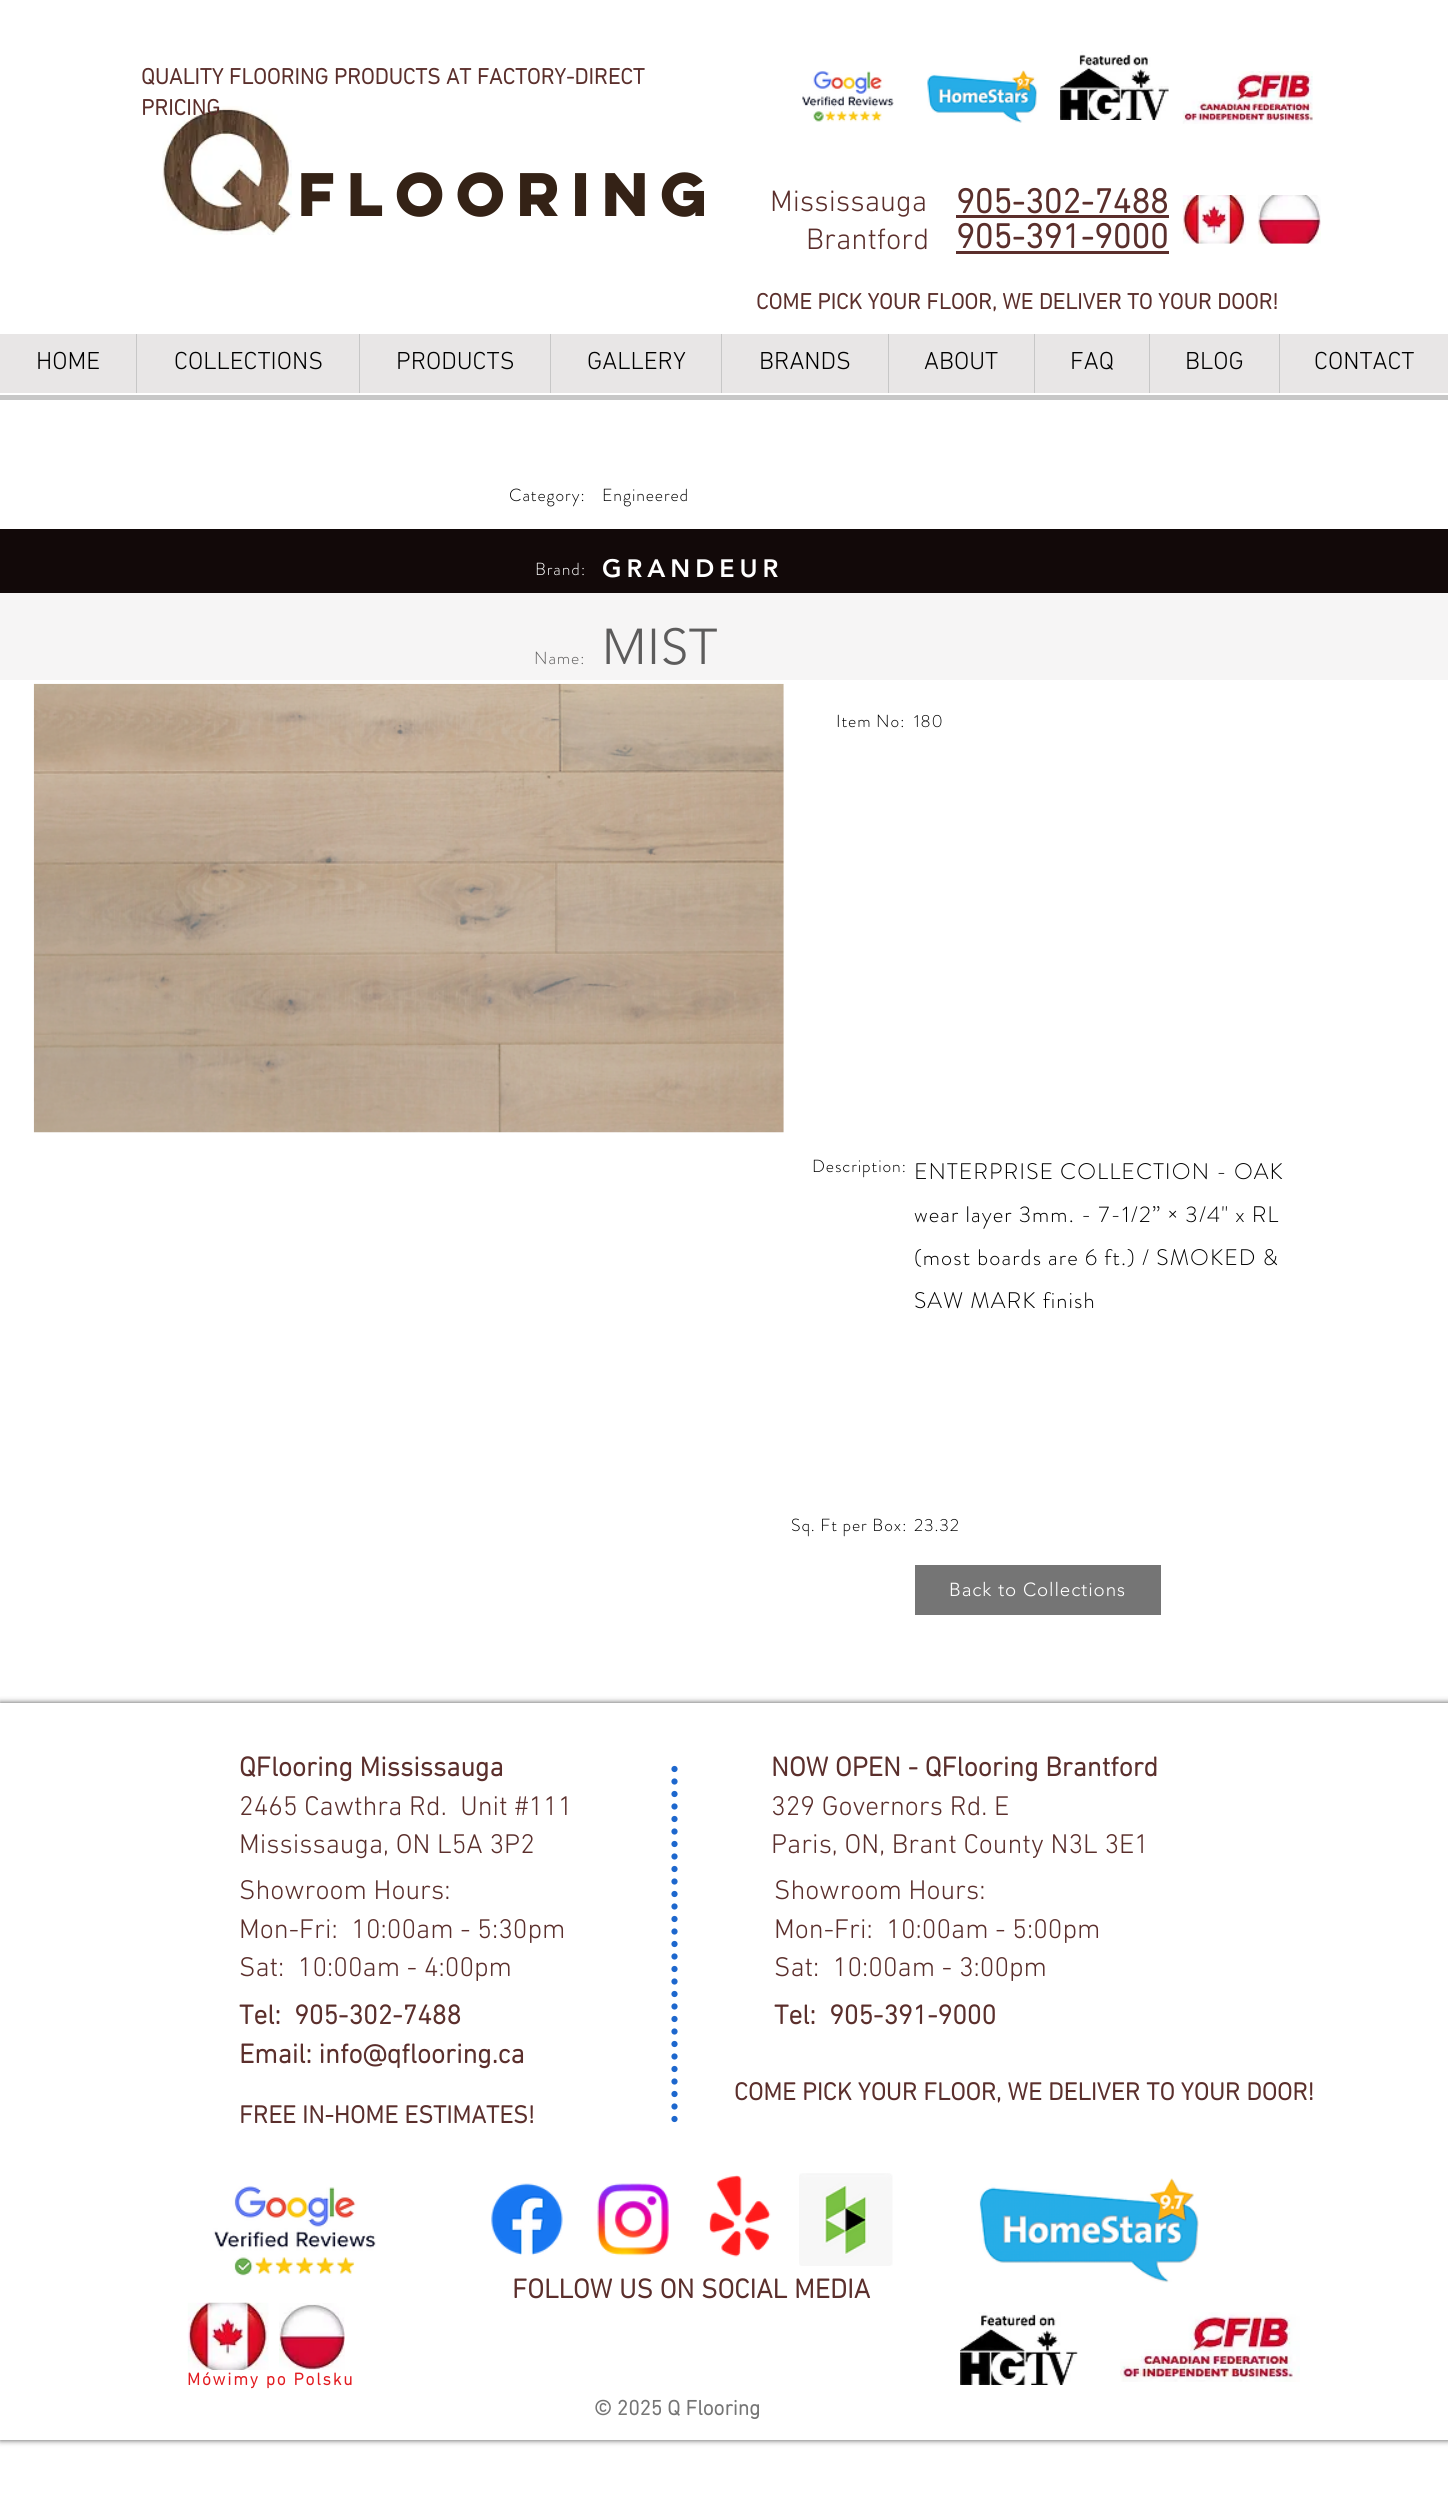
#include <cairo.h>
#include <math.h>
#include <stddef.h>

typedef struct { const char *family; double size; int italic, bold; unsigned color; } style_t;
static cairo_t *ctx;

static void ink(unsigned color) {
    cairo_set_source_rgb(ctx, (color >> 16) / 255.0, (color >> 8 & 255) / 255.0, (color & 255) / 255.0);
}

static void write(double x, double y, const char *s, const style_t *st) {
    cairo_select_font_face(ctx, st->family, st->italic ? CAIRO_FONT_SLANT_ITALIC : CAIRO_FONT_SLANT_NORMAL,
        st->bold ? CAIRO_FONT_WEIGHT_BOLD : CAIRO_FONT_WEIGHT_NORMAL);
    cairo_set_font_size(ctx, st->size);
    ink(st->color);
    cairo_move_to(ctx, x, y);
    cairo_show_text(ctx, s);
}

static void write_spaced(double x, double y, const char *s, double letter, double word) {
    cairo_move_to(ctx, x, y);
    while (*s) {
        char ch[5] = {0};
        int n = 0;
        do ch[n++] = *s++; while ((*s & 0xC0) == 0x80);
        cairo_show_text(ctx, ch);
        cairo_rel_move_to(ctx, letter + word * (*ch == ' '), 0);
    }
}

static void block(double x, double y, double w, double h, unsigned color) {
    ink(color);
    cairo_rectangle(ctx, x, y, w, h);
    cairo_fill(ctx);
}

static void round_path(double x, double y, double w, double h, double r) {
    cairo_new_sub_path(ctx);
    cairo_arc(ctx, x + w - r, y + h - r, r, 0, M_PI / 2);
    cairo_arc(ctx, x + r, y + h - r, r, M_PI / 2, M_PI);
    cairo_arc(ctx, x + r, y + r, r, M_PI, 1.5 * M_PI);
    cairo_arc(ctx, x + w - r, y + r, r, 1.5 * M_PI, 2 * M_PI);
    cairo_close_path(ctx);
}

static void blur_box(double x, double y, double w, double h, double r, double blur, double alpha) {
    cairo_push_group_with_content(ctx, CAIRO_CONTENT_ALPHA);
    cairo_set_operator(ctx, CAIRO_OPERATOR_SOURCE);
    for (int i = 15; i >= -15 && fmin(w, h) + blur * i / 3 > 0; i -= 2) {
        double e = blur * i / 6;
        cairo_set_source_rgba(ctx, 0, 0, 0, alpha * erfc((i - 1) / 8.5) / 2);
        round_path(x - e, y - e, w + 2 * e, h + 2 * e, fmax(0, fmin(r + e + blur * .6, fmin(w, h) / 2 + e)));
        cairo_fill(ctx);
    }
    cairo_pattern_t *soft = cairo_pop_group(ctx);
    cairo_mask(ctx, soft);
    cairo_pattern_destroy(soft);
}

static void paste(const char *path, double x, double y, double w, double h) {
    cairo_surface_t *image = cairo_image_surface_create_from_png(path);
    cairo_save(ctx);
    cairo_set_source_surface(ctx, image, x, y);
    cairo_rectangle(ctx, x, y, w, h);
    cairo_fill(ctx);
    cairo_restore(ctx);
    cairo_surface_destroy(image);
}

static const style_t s1 = {"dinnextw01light", 22.5, 0, 1, 0x5b2f2c};
static const style_t s2 = {"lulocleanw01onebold", 55, 0, 1, 0x342216};
static const style_t s3 = {"dinnextw01light Light", 30, 0, 0, 0x5b2f2c};
static const style_t s4 = {"dinnextw01light", 35, 0, 1, 0x5b2f2c};
static const style_t s5 = {"dinnextw01light Light", 25, 0, 0, 0x000000};
static const style_t s6 = {"dinnextw01light", 27.5, 0, 1, 0x5b2f2c};
static const style_t s7 = {"dinnextw01light Light", 27.5, 0, 0, 0x5b2f2c};
static const style_t s8 = {"dinnextw01light", 25, 0, 1, 0x5b2f2c};
static const style_t s9 = {"dinnextw01light", 21.25, 0, 1, 0x757575};

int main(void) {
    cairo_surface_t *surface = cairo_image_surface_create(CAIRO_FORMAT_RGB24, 1448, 2498);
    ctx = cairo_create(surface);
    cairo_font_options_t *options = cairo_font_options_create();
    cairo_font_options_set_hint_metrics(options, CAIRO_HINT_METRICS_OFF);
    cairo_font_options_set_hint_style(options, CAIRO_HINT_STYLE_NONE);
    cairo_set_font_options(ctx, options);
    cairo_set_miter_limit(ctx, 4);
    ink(0xffffff);
    cairo_paint(ctx);
    write(141, 84, "QUALITY FLOORING PRODUCTS AT FACTORY-DIRECT", &s1);
    paste("pic5.png", 162, 106, 130, 129);
    write(141, 115, "PRICING", &s1);
    paste("pic1.png", 802, 71, 92, 51);
    paste("pic2.png", 927, 70, 111, 53);
    paste("pic3.png", 1060, 51, 109, 69);
    paste("pic4.png", 1182, 71, 131, 53);
    write(298, 216, "Flooring", &s2);
    write(770, 211, "Mississauga", &s3);
    write(956, 213, "905-302-7488", &s4);
    block(956, 215, 213, 3, 0x5b2f2c);
    paste("pic6.png", 1182, 195, 64, 49);
    paste("pic7.png", 1257, 195, 64, 49);
    write(806, 249, "Brantford", &s3);
    write(956, 248, "905-391-9000", &s4);
    block(956, 251, 213, 3, 0x5b2f2c);
    write(756, 309, "COME PICK YOUR FLOOR, WE DELIVER TO YOUR DOOR!", &s1);
    block(0, 334, 1448, 59, 0xe8e6e6);
    write(36, 369, "HOME", &s5);
    block(136, 334, 1, 59, 0xc7c7c7);
    write(174, 369, "COLLECTIONS", &s5);
    block(359, 334, 1, 59, 0xc7c7c7);
    write(396, 369, "PRODUCTS", &s5);
    block(550, 334, 1, 59, 0xc7c7c7);
    write(587, 369, "GALLERY", &s5);
    block(721, 334, 1, 59, 0xc7c7c7);
    write(759, 369, "BRANDS", &s5);
    block(888, 334, 1, 59, 0xc7c7c7);
    write(924, 369, "ABOUT", &s5);
    block(1034, 334, 1, 59, 0xc7c7c7);
    write(1070, 369, "FAQ", &s5);
    block(1149, 334, 1, 59, 0xc7c7c7);
    write(1185, 369, "BLOG", &s5);
    block(1279, 334, 1, 59, 0xc7c7c7);
    write(1314, 369, "CONTACT", &s5);
    block(0, 395, 1448, 5, 0xc7c7c7);
    cairo_select_font_face(ctx, "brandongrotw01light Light", CAIRO_FONT_SLANT_NORMAL, CAIRO_FONT_WEIGHT_NORMAL);
    cairo_set_font_size(ctx, 17.5);
    ink(0x000000);
    write_spaced(509, 501, "Category:", 0.9, 0);
    write_spaced(602, 501, "Engineered", 0.9, 0);
    block(0, 529, 1448, 64, 0x120909);
    ink(0xffffff);
    write_spaced(535, 575, "Brand:", 0.9, 0);
    cairo_select_font_face(ctx, "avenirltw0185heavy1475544 Black", CAIRO_FONT_SLANT_NORMAL, CAIRO_FONT_WEIGHT_NORMAL);
    cairo_set_font_size(ctx, 25);
    write_spaced(602, 577, "GRANDEUR", 5, 0);
    block(0, 593, 1448, 87, 0xf6f5f5);
    cairo_select_font_face(ctx, "brandongrotw01light Light", CAIRO_FONT_SLANT_NORMAL, CAIRO_FONT_WEIGHT_NORMAL);
    cairo_set_font_size(ctx, 17.5);
    ink(0x5d5c5c);
    write_spaced(534, 664, "Name:", 0.9, 0);
    cairo_select_font_face(ctx, "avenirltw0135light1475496 Light", CAIRO_FONT_SLANT_NORMAL, CAIRO_FONT_WEIGHT_NORMAL);
    cairo_set_font_size(ctx, 50);
    write_spaced(602, 664, "MIST", 0.5, 0);
    paste("pic8.png", 33, 683, 751, 450);
    cairo_select_font_face(ctx, "brandongrotw01light Light", CAIRO_FONT_SLANT_NORMAL, CAIRO_FONT_WEIGHT_NORMAL);
    cairo_set_font_size(ctx, 17.5);
    ink(0x000000);
    write_spaced(836, 727, "Item No:", 0.9, 0);
    write_spaced(914, 727, "180", 0.9, 0);
    write_spaced(812, 1172, "Description:", 0.9, 0);
    cairo_set_font_size(ctx, 22.5);
    write_spaced(914, 1179, "ENTERPRISE COLLECTION - OAK", 1.1, 0);
    write_spaced(914, 1222, "wear layer 3mm. - 7-1/2” × 3/4\" x RL", 1.1, 0);
    write_spaced(914, 1265, "(most boards are 6 ft.) / SMOKED &", 1.1, 0);
    write_spaced(914, 1308, "SAW MARK finish", 1.1, 0);
    cairo_set_font_size(ctx, 17.5);
    write_spaced(791, 1531, "Sq. Ft per Box:", 0.9, 0);
    write_spaced(914, 1531, "23.32", 0.9, 0);
    block(915, 1565, 246, 50, 0x757575);
    cairo_select_font_face(ctx, "avenirltw0135light1475496 Light", CAIRO_FONT_SLANT_NORMAL, CAIRO_FONT_WEIGHT_NORMAL);
    cairo_set_font_size(ctx, 18.75);
    ink(0xffffff);
    write_spaced(949, 1596, "Back to Collections", 0.9, 0);
    cairo_save(ctx);
    cairo_set_fill_rule(ctx, CAIRO_FILL_RULE_EVEN_ODD);
    cairo_new_path(ctx);
    cairo_move_to(ctx, 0, 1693);
    cairo_line_to(ctx, 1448, 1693);
    cairo_line_to(ctx, 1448, 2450);
    cairo_line_to(ctx, 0, 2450);
    cairo_close_path(ctx);
    cairo_move_to(ctx, 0, 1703);
    cairo_line_to(ctx, 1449, 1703);
    cairo_line_to(ctx, 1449, 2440);
    cairo_line_to(ctx, 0, 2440);
    cairo_close_path(ctx);
    cairo_clip(ctx);
    ink(0x000000);
    blur_box(0, 1703, 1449, 737, 0, 3, 0.7);
    cairo_restore(ctx);
    write(239, 1776, "QFlooring Mississauga", &s6);
    write(239, 1815, "2465 Cawthra Rd.  Unit #111", &s7);
    write(239, 1853, "Mississauga, ON L5A 3P2", &s7);
    cairo_new_path(ctx);
    cairo_move_to(ctx, 674.5, 1769);
    cairo_line_to(ctx, 674.5, 2130);
    ink(0x1d67cd);
    cairo_set_line_width(ctx, 6.2);
    cairo_set_line_cap(ctx, CAIRO_LINE_CAP_ROUND);
    cairo_set_dash(ctx, (double[]){0, 12.5}, 2, 0);
    cairo_stroke(ctx);
    write(771, 1776, "NOW OPEN - QFlooring Brantford", &s6);
    write(771, 1815, "329 Governors Rd. E", &s7);
    write(771, 1853, "Paris, ON, Brant County N3L 3E1", &s7);
    write(239, 1899, "Showroom Hours:", &s7);
    write(239, 1938, "Mon-Fri:  10:00am - 5:30pm", &s7);
    write(239, 1976, "Sat:  10:00am - 4:00pm", &s7);
    write(774, 1899, "Showroom Hours:", &s7);
    write(774, 1938, "Mon-Fri:  10:00am - 5:00pm", &s7);
    write(774, 1976, "Sat:  10:00am - 3:00pm", &s7);
    write(239, 2024, "Tel:  905-302-7488", &s6);
    write(239, 2063, "Email: info@qflooring.ca", &s6);
    write(774, 2024, "Tel:  905-391-9000", &s6);
    write(734, 2100, "COME PICK YOUR FLOOR, WE DELIVER TO YOUR DOOR!", &s8);
    write(239, 2123, "FREE IN-HOME ESTIMATES!", &s8);
    paste("pic9.png", 213, 2186, 163, 90);
    paste("pic10.png", 491, 2183, 72, 73);
    paste("pic11.png", 597, 2183, 72, 73);
    paste("pic12.png", 709, 2175, 62, 82);
    paste("pic13.png", 799, 2173, 94, 93);
    paste("pic14.png", 979, 2178, 220, 105);
    write(512, 2298, "FOLLOW US ON SOCIAL MEDIA", &s6);
    paste("pic15.png", 187, 2302, 82, 68);
    paste("pic16.png", 279, 2303, 66, 67);
    cairo_set_font_size(ctx, 17.5);
    ink(0xe21c21);
    write_spaced(187, 2385, "Mówimy po Polsku", 1.75, 0);
    paste("pic17.png", 960, 2312, 118, 73);
    paste("pic18.png", 1120, 2312, 180, 70);
    write(594, 2415, "© 2025 Q Flooring", &s9);
    cairo_surface_write_to_png(surface, "screenshot.png");
    cairo_font_options_destroy(options);
    cairo_destroy(ctx);
    cairo_surface_destroy(surface);
    return 0;
}
